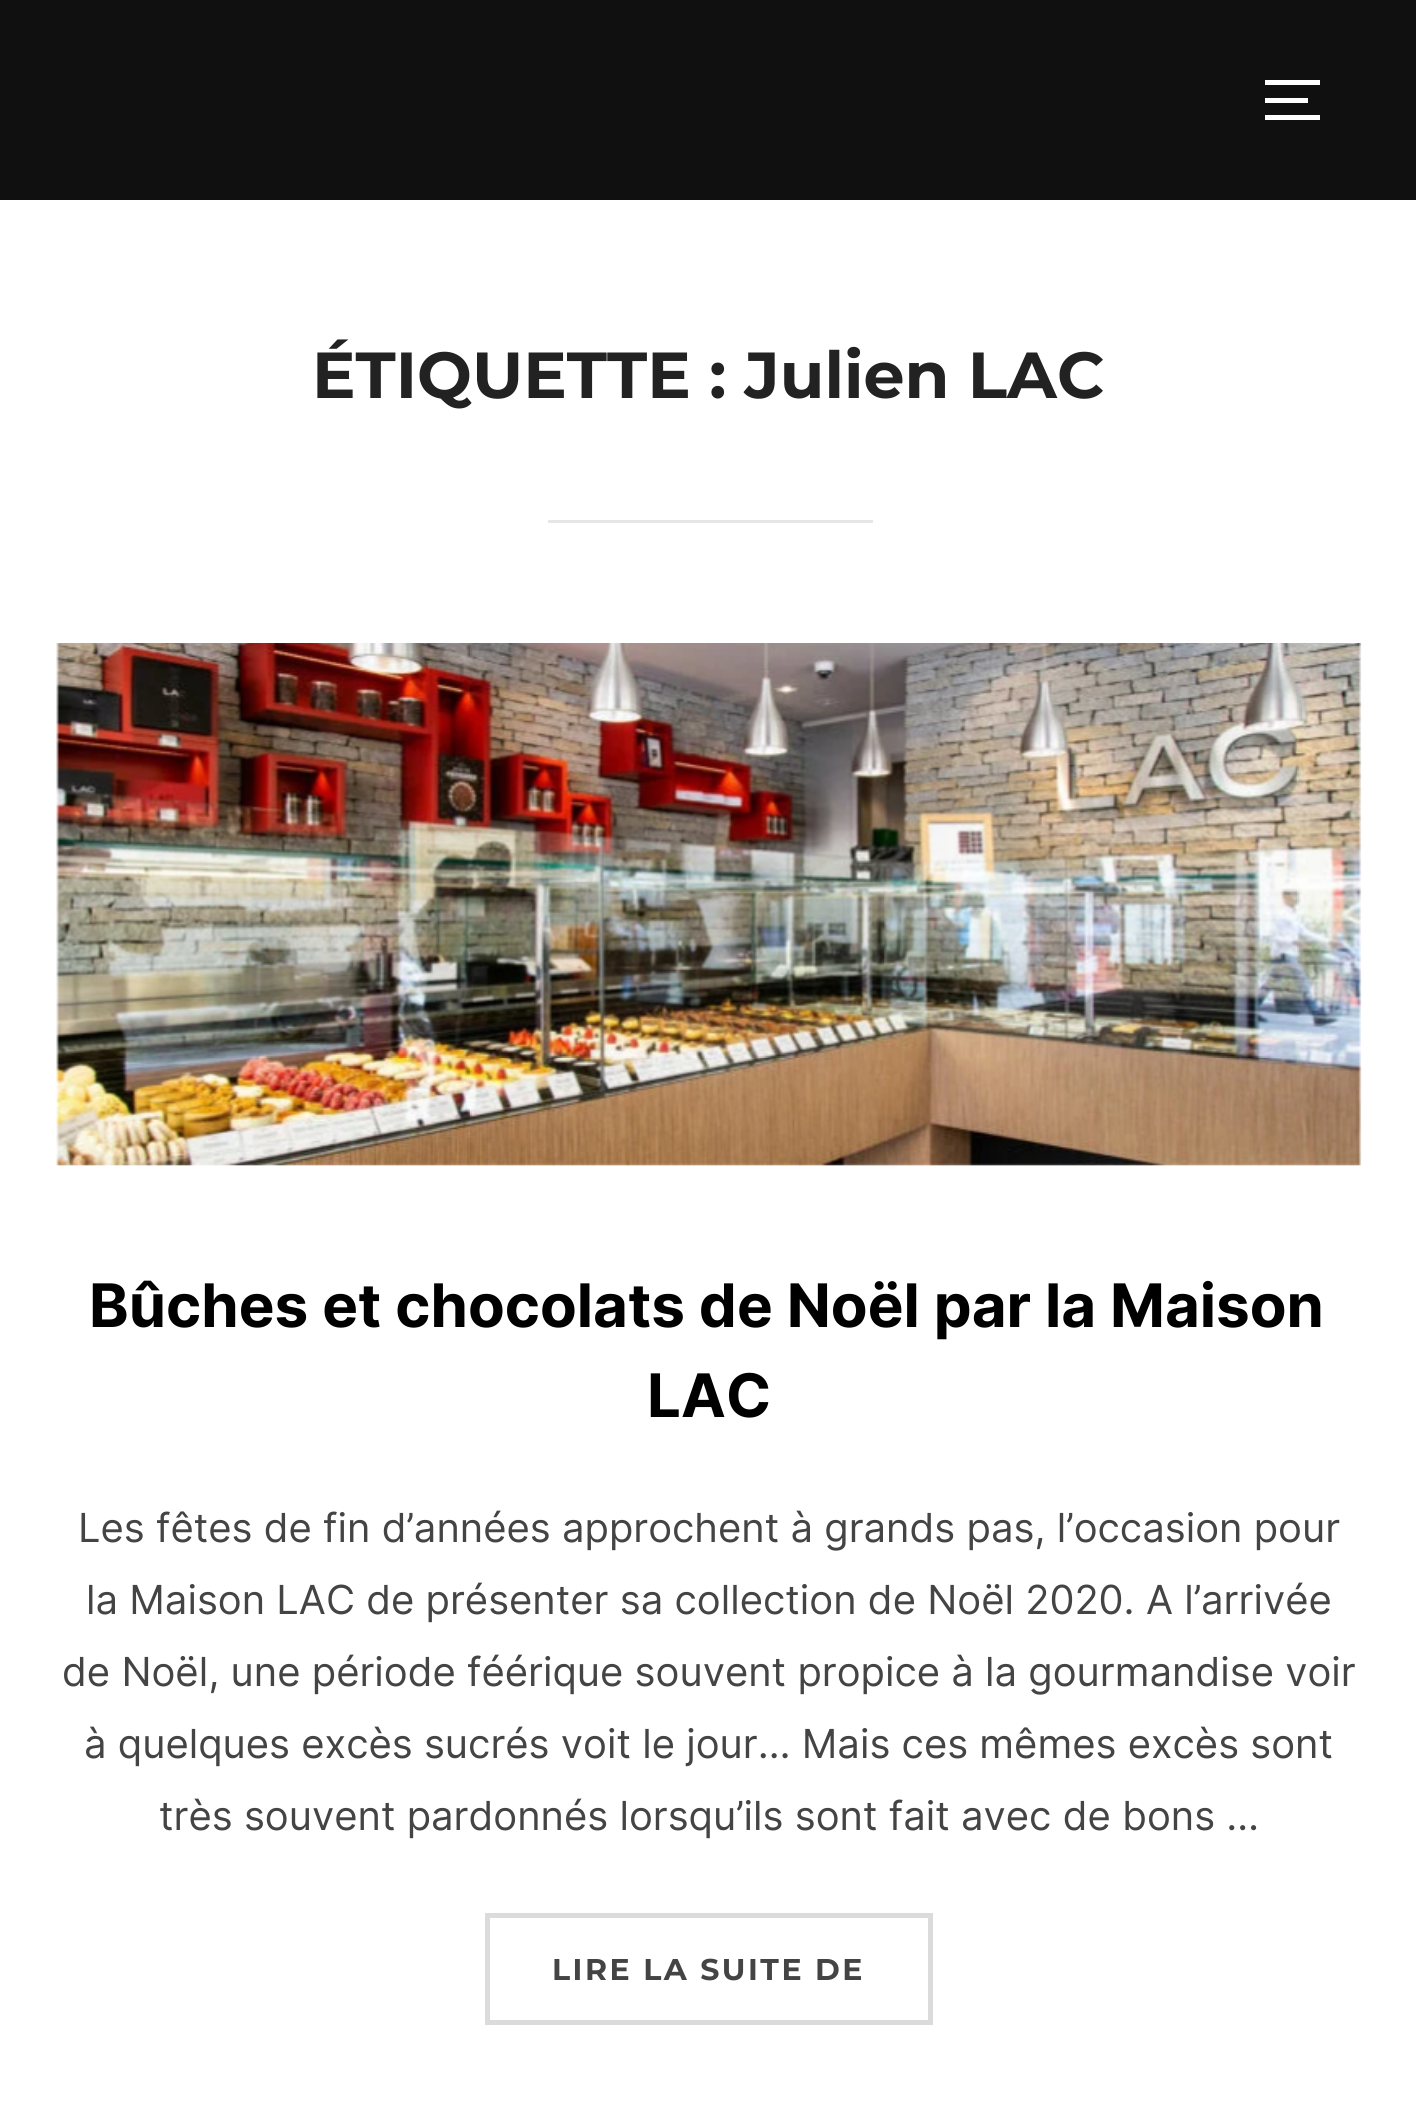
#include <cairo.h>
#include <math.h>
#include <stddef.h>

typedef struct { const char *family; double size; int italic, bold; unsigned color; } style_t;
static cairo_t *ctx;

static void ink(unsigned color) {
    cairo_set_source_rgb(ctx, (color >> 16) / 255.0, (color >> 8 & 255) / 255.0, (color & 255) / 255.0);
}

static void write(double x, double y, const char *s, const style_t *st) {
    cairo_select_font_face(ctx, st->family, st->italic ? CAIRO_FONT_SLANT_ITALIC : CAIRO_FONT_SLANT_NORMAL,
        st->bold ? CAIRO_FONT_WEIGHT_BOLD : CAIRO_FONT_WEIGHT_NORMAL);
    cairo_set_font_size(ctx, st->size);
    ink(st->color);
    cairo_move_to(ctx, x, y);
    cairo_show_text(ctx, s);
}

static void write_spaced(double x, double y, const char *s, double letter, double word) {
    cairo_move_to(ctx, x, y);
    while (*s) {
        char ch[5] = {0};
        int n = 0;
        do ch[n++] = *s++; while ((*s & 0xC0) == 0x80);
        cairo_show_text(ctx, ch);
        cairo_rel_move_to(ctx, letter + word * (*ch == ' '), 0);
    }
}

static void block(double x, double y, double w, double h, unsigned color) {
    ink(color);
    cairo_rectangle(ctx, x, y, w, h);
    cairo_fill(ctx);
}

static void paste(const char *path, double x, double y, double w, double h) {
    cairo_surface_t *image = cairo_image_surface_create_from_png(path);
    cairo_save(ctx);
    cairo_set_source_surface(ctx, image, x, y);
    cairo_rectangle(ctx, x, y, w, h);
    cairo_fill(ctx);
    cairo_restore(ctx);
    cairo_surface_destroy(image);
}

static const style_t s1 = {"Montserrat", 65, 0, 1, 0x222222};
static const style_t s2 = {"Inter", 60, 0, 1, 0x000000};
static const style_t s3 = {"Inter", 40, 0, 0, 0x444444};

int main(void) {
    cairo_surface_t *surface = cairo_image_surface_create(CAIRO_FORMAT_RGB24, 1416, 2111);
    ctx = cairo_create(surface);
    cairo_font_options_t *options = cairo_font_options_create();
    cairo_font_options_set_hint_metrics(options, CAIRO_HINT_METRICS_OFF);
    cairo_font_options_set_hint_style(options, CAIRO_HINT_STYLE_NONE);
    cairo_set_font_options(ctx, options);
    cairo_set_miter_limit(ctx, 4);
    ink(0xffffff);
    cairo_paint(ctx);
    block(0, 0, 1416, 200, 0x101010);
    block(1265, 80, 55, 5, 0xffffff);
    block(1265, 98, 43, 5, 0xffffff);
    block(1265, 115, 55, 5, 0xffffff);
    write(312, 398, "ÉTIQUETTE : Julien LAC", &s1);
    block(548, 520, 325, 3, 0xe6e6e6);
    paste("pic1.png", 56, 643, 1306, 523);
    write(89, 1327, "Bûches et chocolats de Noël par la Maison", &s2);
    write(647, 1417, "LAC", &s2);
    write(78, 1542, "Les fêtes de fin d’années approchent à grands pas, l’occasion pour", &s3);
    write(86, 1614, "la Maison LAC de présenter sa collection de Noël 2020. A l’arrivée", &s3);
    write(62, 1686, "de Noël, une période féérique souvent propice à la gourmandise voir", &s3);
    write(84, 1758, "à quelques excès sucrés voit le jour… Mais ces mêmes excès sont", &s3);
    write(159, 1830, "très souvent pardonnés lorsqu’ils sont fait avec de bons …", &s3);
    cairo_rectangle(ctx, 487.5, 1915.5, 443, 107);
    ink(0xdbdbdb);
    cairo_set_line_width(ctx, 5);
    cairo_stroke(ctx);
    cairo_select_font_face(ctx, "Montserrat", CAIRO_FONT_SLANT_NORMAL, CAIRO_FONT_WEIGHT_BOLD);
    cairo_set_font_size(ctx, 30);
    ink(0x444444);
    write_spaced(552, 1980, "LIRE LA SUITE DE", 2.5, 0);
    cairo_surface_write_to_png(surface, "screenshot.png");
    cairo_font_options_destroy(options);
    cairo_destroy(ctx);
    cairo_surface_destroy(surface);
    return 0;
}
